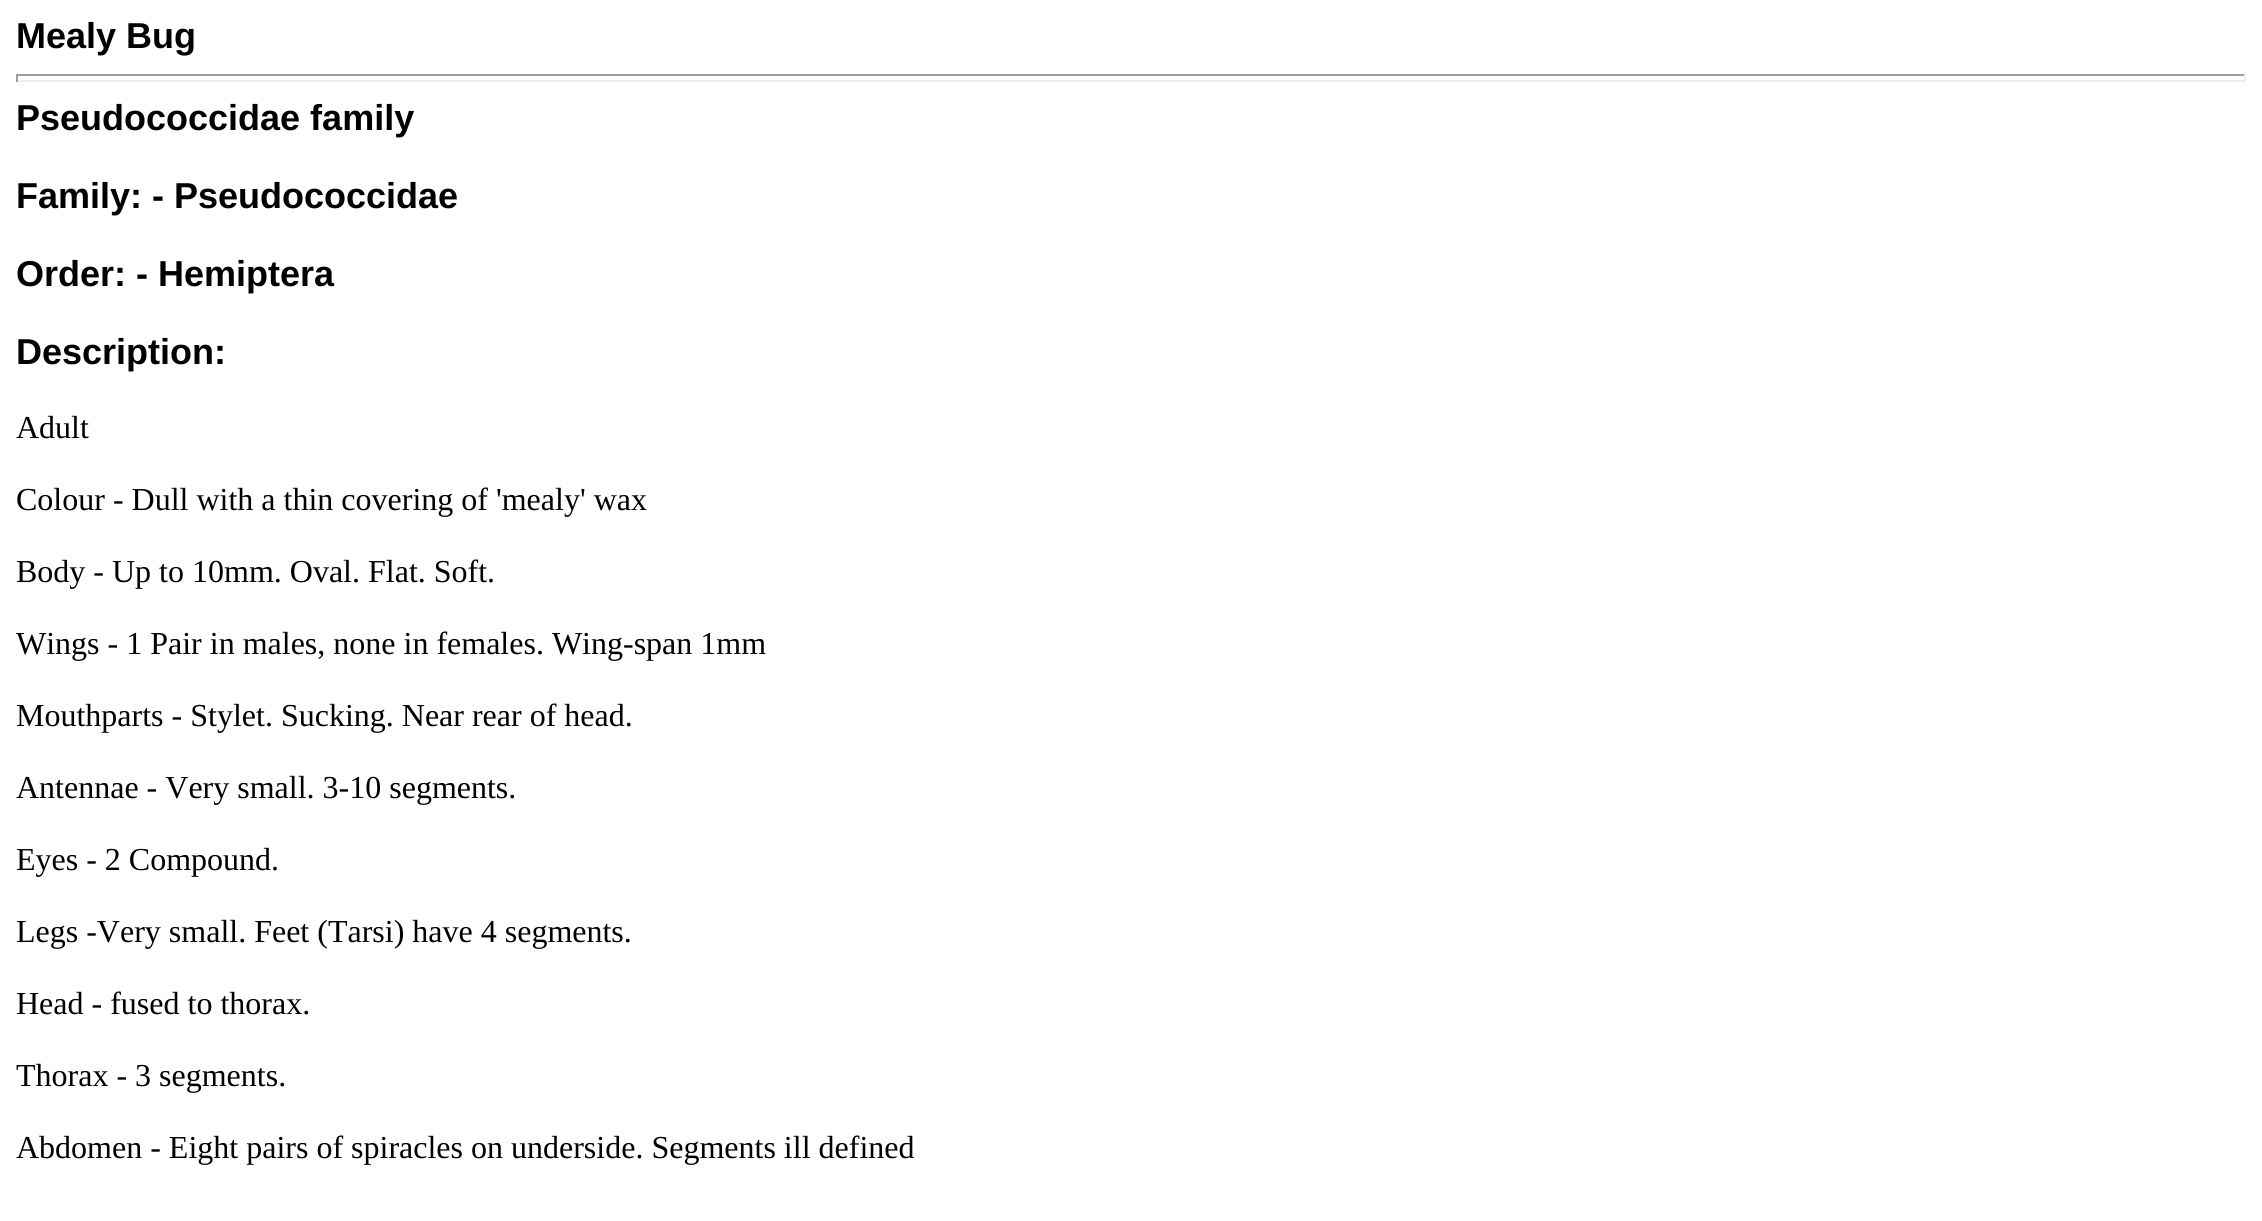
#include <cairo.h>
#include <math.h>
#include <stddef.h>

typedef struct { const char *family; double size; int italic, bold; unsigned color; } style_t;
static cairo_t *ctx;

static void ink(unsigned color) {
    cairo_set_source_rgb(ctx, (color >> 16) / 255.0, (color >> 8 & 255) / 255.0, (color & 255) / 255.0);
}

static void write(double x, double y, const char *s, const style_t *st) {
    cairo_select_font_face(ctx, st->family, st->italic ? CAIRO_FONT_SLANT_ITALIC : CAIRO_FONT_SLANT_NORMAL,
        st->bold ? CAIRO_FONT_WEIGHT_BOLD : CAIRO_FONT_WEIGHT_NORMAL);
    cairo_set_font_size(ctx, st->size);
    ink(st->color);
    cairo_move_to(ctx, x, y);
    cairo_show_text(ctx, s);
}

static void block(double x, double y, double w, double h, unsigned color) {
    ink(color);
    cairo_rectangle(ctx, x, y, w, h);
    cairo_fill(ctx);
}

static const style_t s1 = {"Liberation Sans", 36, 0, 1, 0x000000};
static const style_t s2 = {"Liberation Serif", 32, 0, 0, 0x000000};

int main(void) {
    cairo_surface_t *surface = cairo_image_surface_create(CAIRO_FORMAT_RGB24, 2262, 1221);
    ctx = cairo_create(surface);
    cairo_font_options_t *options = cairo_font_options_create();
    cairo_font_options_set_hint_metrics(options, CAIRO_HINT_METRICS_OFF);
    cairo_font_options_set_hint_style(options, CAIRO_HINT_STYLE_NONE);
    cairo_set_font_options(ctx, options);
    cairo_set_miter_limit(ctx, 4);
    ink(0xffffff);
    cairo_paint(ctx);
    write(16, 48, "Mealy Bug", &s1);
    block(16, 74, 2230, 2, 0x9f9f9f);
    block(2244, 74, 2, 8, 0xeeeeee);
    block(16, 80, 2230, 2, 0xeeeeee);
    block(16, 74, 2, 8, 0x9f9f9f);
    write(16, 130, "Pseudococcidae family", &s1);
    write(16, 208, "Family: - Pseudococcidae", &s1);
    write(16, 286, "Order: - Hemiptera", &s1);
    write(16, 364, "Description:", &s1);
    write(16, 438, "Adult", &s2);
    write(16, 510, "Colour - Dull with a thin covering of 'mealy' wax", &s2);
    write(16, 582, "Body - Up to 10mm. Oval. Flat. Soft.", &s2);
    write(16, 654, "Wings - 1 Pair in males, none in females. Wing-span 1mm", &s2);
    write(16, 726, "Mouthparts - Stylet. Sucking. Near rear of head.", &s2);
    write(16, 798, "Antennae - Very small. 3-10 segments.", &s2);
    write(16, 870, "Eyes - 2 Compound.", &s2);
    write(16, 942, "Legs -Very small. Feet (Tarsi) have 4 segments.", &s2);
    write(16, 1014, "Head - fused to thorax.", &s2);
    write(16, 1086, "Thorax - 3 segments.", &s2);
    write(16, 1158, "Abdomen - Eight pairs of spiracles on underside. Segments ill defined", &s2);
    cairo_surface_write_to_png(surface, "screenshot.png");
    cairo_font_options_destroy(options);
    cairo_destroy(ctx);
    cairo_surface_destroy(surface);
    return 0;
}
